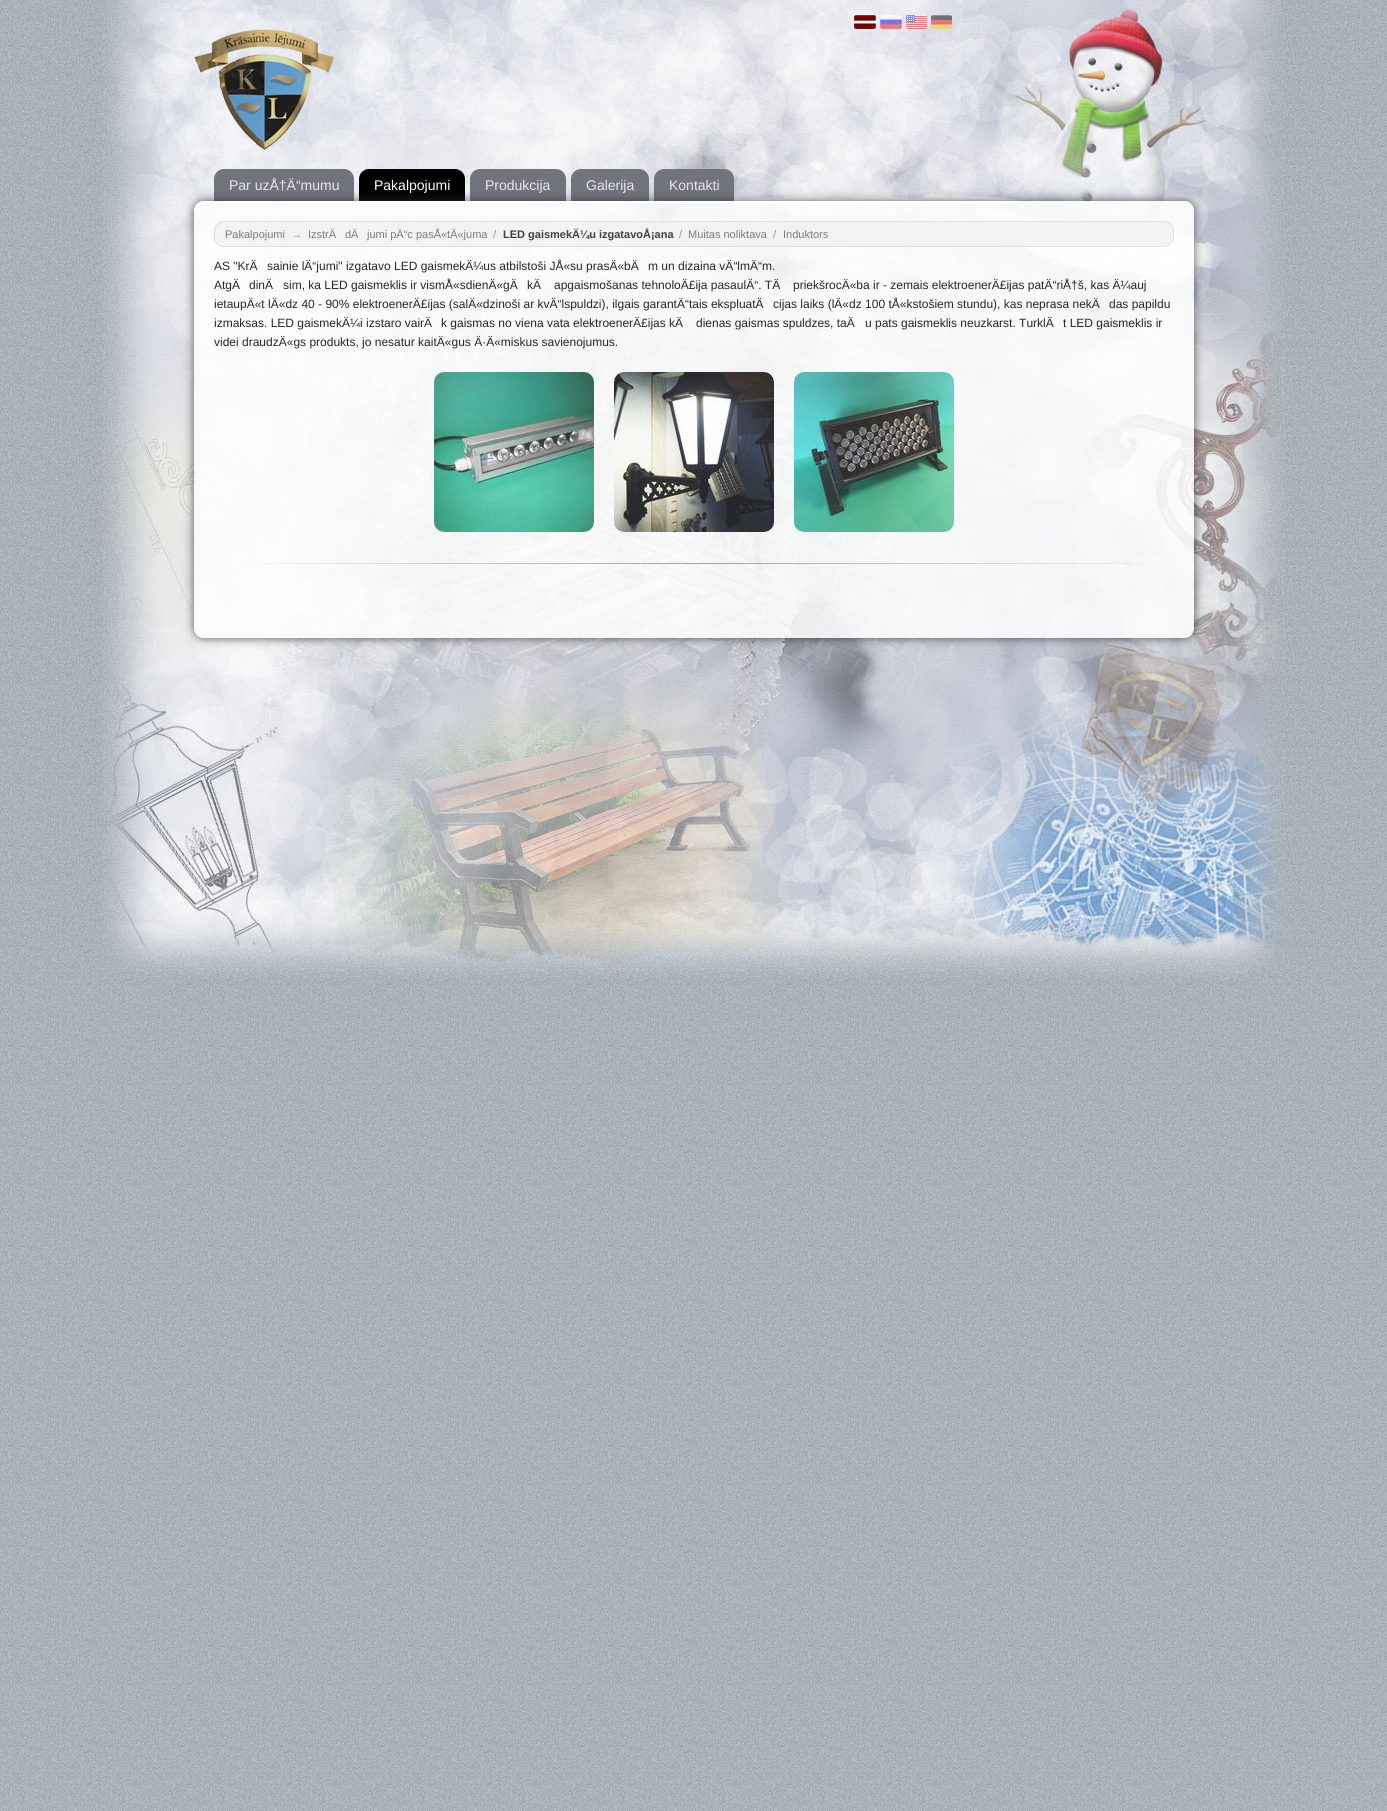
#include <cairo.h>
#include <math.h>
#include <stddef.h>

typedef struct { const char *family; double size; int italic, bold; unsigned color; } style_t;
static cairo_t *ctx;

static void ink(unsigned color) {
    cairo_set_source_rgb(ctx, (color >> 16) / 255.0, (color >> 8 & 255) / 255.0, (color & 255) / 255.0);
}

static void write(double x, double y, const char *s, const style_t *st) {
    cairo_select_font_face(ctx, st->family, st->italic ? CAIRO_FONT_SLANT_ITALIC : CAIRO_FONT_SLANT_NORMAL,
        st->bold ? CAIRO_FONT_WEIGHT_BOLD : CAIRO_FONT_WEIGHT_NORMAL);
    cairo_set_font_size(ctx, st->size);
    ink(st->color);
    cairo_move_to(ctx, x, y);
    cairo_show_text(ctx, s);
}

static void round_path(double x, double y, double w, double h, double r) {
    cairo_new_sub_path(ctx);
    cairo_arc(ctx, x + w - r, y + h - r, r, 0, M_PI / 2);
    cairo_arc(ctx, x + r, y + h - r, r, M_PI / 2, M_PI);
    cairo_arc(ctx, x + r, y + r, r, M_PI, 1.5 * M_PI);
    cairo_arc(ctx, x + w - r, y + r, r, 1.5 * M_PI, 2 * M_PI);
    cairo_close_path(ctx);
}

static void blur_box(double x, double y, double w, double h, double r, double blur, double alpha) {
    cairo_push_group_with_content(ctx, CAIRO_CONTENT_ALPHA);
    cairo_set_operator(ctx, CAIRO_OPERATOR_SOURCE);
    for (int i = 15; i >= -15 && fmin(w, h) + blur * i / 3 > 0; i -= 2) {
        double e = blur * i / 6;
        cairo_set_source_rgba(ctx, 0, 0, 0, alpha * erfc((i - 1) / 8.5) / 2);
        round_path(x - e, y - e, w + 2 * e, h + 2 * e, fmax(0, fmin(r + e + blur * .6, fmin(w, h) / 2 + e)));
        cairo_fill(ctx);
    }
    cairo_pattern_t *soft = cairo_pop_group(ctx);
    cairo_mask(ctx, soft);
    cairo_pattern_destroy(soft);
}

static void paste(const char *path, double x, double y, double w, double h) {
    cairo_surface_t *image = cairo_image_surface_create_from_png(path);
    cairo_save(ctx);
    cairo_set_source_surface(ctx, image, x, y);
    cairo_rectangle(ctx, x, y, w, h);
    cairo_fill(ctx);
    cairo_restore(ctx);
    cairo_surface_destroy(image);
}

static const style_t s1 = {"Liberation Sans", 14, 0, 0, 0xe6e7ec};
static const style_t s2 = {"Liberation Sans", 14, 0, 0, 0xffffff};
static const style_t s3 = {"Liberation Sans", 11, 0, 0, 0x7b7b7b};
static const style_t s4 = {"Liberation Sans", 11, 0, 0, 0x979797};
static const style_t s5 = {"Liberation Sans", 11, 0, 1, 0x414141};
static const style_t s6 = {"Liberation Sans", 12, 0, 0, 0x262626};

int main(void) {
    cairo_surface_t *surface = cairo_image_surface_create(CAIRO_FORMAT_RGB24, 1387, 1811);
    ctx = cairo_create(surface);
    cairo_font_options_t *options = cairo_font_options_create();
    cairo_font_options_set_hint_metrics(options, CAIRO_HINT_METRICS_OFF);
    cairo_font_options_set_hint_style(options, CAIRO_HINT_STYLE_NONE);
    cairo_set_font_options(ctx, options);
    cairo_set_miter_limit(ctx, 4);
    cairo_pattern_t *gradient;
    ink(0xffffff);
    cairo_paint(ctx);
    paste("pic1.png", 0, 0, 1387, 1811);
    paste("pic2.png", 94, 0, 1200, 980);
    blur_box(854, 15, 22, 14, 2, 2.5, 1);
    paste("pic3.png", 854, 15, 22, 14);
    paste("pic4.png", 880, 15, 22, 14);
    paste("pic5.png", 906, 15, 21, 14);
    paste("pic6.png", 931, 15, 21, 14);
    paste("pic7.png", 194, 29, 143, 122);
    ink(0x71747b);
    cairo_new_path(ctx);
    cairo_move_to(ctx, 224, 169);
    cairo_line_to(ctx, 344, 169);
    cairo_curve_to(ctx, 349.5, 169, 354, 173.5, 354, 179);
    cairo_line_to(ctx, 354, 201);
    cairo_line_to(ctx, 214, 201);
    cairo_line_to(ctx, 214, 179);
    cairo_curve_to(ctx, 214, 173.5, 218.5, 169, 224, 169);
    cairo_close_path(ctx);
    cairo_fill(ctx);
    write(229, 190, "Par uzÅ†Ä“mumu", &s1);
    ink(0x000000);
    cairo_new_path(ctx);
    cairo_move_to(ctx, 369, 169);
    cairo_line_to(ctx, 455, 169);
    cairo_curve_to(ctx, 460.5, 169, 465, 173.5, 465, 179);
    cairo_line_to(ctx, 465, 201);
    cairo_line_to(ctx, 359, 201);
    cairo_line_to(ctx, 359, 179);
    cairo_curve_to(ctx, 359, 173.5, 363.5, 169, 369, 169);
    cairo_close_path(ctx);
    cairo_fill(ctx);
    write(374, 190, "Pakalpojumi", &s2);
    ink(0x71747b);
    cairo_new_path(ctx);
    cairo_move_to(ctx, 480, 169);
    cairo_line_to(ctx, 556, 169);
    cairo_curve_to(ctx, 561.5, 169, 566, 173.5, 566, 179);
    cairo_line_to(ctx, 566, 201);
    cairo_line_to(ctx, 470, 201);
    cairo_line_to(ctx, 470, 179);
    cairo_curve_to(ctx, 470, 173.5, 474.5, 169, 480, 169);
    cairo_close_path(ctx);
    cairo_fill(ctx);
    write(485, 190, "Produkcija", &s1);
    ink(0x71747b);
    cairo_new_path(ctx);
    cairo_move_to(ctx, 581, 169);
    cairo_line_to(ctx, 639, 169);
    cairo_curve_to(ctx, 644.5, 169, 649, 173.5, 649, 179);
    cairo_line_to(ctx, 649, 201);
    cairo_line_to(ctx, 571, 201);
    cairo_line_to(ctx, 571, 179);
    cairo_curve_to(ctx, 571, 173.5, 575.5, 169, 581, 169);
    cairo_close_path(ctx);
    cairo_fill(ctx);
    write(586, 190, "Galerija", &s1);
    ink(0x71747b);
    cairo_new_path(ctx);
    cairo_move_to(ctx, 664, 169);
    cairo_line_to(ctx, 724, 169);
    cairo_curve_to(ctx, 729.5, 169, 734, 173.5, 734, 179);
    cairo_line_to(ctx, 734, 201);
    cairo_line_to(ctx, 654, 201);
    cairo_line_to(ctx, 654, 179);
    cairo_curve_to(ctx, 654, 173.5, 658.5, 169, 664, 169);
    cairo_close_path(ctx);
    cairo_fill(ctx);
    write(669, 190, "Kontakti", &s1);
    paste("pic11.png", 1078, 642, 146, 161);
    cairo_save(ctx);
    cairo_set_fill_rule(ctx, CAIRO_FILL_RULE_EVEN_ODD);
    cairo_new_path(ctx);
    cairo_move_to(ctx, 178, 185);
    cairo_line_to(ctx, 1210, 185);
    cairo_line_to(ctx, 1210, 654);
    cairo_line_to(ctx, 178, 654);
    cairo_close_path(ctx);
    cairo_move_to(ctx, 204, 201);
    cairo_line_to(ctx, 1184, 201);
    cairo_curve_to(ctx, 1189.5, 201, 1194, 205.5, 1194, 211);
    cairo_line_to(ctx, 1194, 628);
    cairo_curve_to(ctx, 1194, 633.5, 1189.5, 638, 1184, 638);
    cairo_line_to(ctx, 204, 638);
    cairo_curve_to(ctx, 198.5, 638, 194, 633.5, 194, 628);
    cairo_line_to(ctx, 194, 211);
    cairo_curve_to(ctx, 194, 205.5, 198.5, 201, 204, 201);
    cairo_close_path(ctx);
    cairo_clip(ctx);
    ink(0x333333);
    blur_box(194, 201, 1000, 437, 10, 5, 0.85);
    cairo_restore(ctx);
    cairo_set_source_rgba(ctx, 1, 1, 1, 0.85);
    round_path(194, 201, 1000, 437, 10);
    cairo_fill(ctx);
    cairo_set_source_rgba(ctx, 0.945, 0.945, 0.945, 0.85);
    round_path(214, 221, 960, 26, 10);
    cairo_fill(ctx);
    round_path(214.5, 221.5, 959, 25, 9.5);
    cairo_set_source_rgba(ctx, 0.867, 0.867, 0.867, 0.85);
    cairo_set_line_width(ctx, 1);
    cairo_stroke(ctx);
    write(225, 238, "Pakalpojumi", &s3);
    write(291, 238, "→", &s4);
    write(308, 238, "IzstrÄ", &s3);
    write(345, 238, "dÄ", &s3);
    write(367, 238, "jumi pÄ“c pasÅ«tÄ«juma", &s3);
    write(493, 238, "/", &s4);
    write(503, 238, "LED gaismekÄ¼u izgatavoÅ¡ana", &s5);
    write(679, 238, "/", &s4);
    write(688, 238, "Muitas noliktava", &s3);
    write(773, 238, "/", &s4);
    write(783, 238, "Induktors", &s3);
    write(214, 270, "AS \"KrÄ", &s6);
    write(267, 270, "sainie lÄ“jumi\" izgatavo LED gaismekÄ¼us atbilstoši JÅ«su prasÄ«bÄ", &s6);
    write(648, 270, "m un dizaina vÄ“lmÄ“m.", &s6);
    write(214, 289, "AtgÄ", &s6);
    write(249, 289, "dinÄ", &s6);
    write(283, 289, "sim, ka LED gaismeklis ir vismÅ«sdienÄ«gÄ", &s6);
    write(527, 289, "kÄ", &s6);
    write(554, 289, "apgaismošanas tehnoloÄ£ija pasaulÄ“. TÄ", &s6);
    write(793, 289, "priekšrocÄ«ba ir - zemais elektroenerÄ£ijas patÄ“riÅ†š, kas Ä¼auj", &s6);
    write(214, 308, "ietaupÄ«t lÄ«dz 40 - 90% elektroenerÄ£ijas (salÄ«dzinoši ar kvÄ“lspuldzi), ilgais garantÄ“tais ekspluatÄ", &s6);
    write(773, 308, "cijas laiks (lÄ«dz 100 tÅ«kstošiem stundu), kas neprasa nekÄ", &s6);
    write(1109, 308, "das papildu", &s6);
    write(214, 327, "izmaksas. LED gaismekÄ¼i izstaro vairÄ", &s6);
    write(441, 327, "k gaismas no viena vata elektroenerÄ£ijas kÄ", &s6);
    write(696, 327, "dienas gaismas spuldzes, taÄ", &s6);
    write(865, 327, "u pats gaismeklis neuzkarst. TurklÄ", &s6);
    write(1063, 327, "t LED gaismeklis ir", &s6);
    write(214, 346, "videi draudzÄ«gs produkts, jo nesatur kaitÄ«gus Ä·Ä«miskus savienojumus.", &s6);
    paste("pic8.png", 434, 372, 160, 160);
    paste("pic9.png", 614, 372, 160, 160);
    paste("pic10.png", 794, 372, 160, 160);
    gradient = cairo_pattern_create_linear(214, 564, 1174, 564);
    cairo_pattern_add_color_stop_rgba(gradient, 0, 0, 0, 0, 0);
    cairo_pattern_add_color_stop_rgba(gradient, 0.5, 0, 0, 0, 0.34);
    cairo_pattern_add_color_stop_rgba(gradient, 1, 0, 0, 0, 0);
    cairo_set_source(ctx, gradient);
    cairo_pattern_destroy(gradient);
    cairo_rectangle(ctx, 244, 563, 900, 1);
    cairo_fill(ctx);
    cairo_surface_write_to_png(surface, "screenshot.png");
    cairo_font_options_destroy(options);
    cairo_destroy(ctx);
    cairo_surface_destroy(surface);
    return 0;
}
